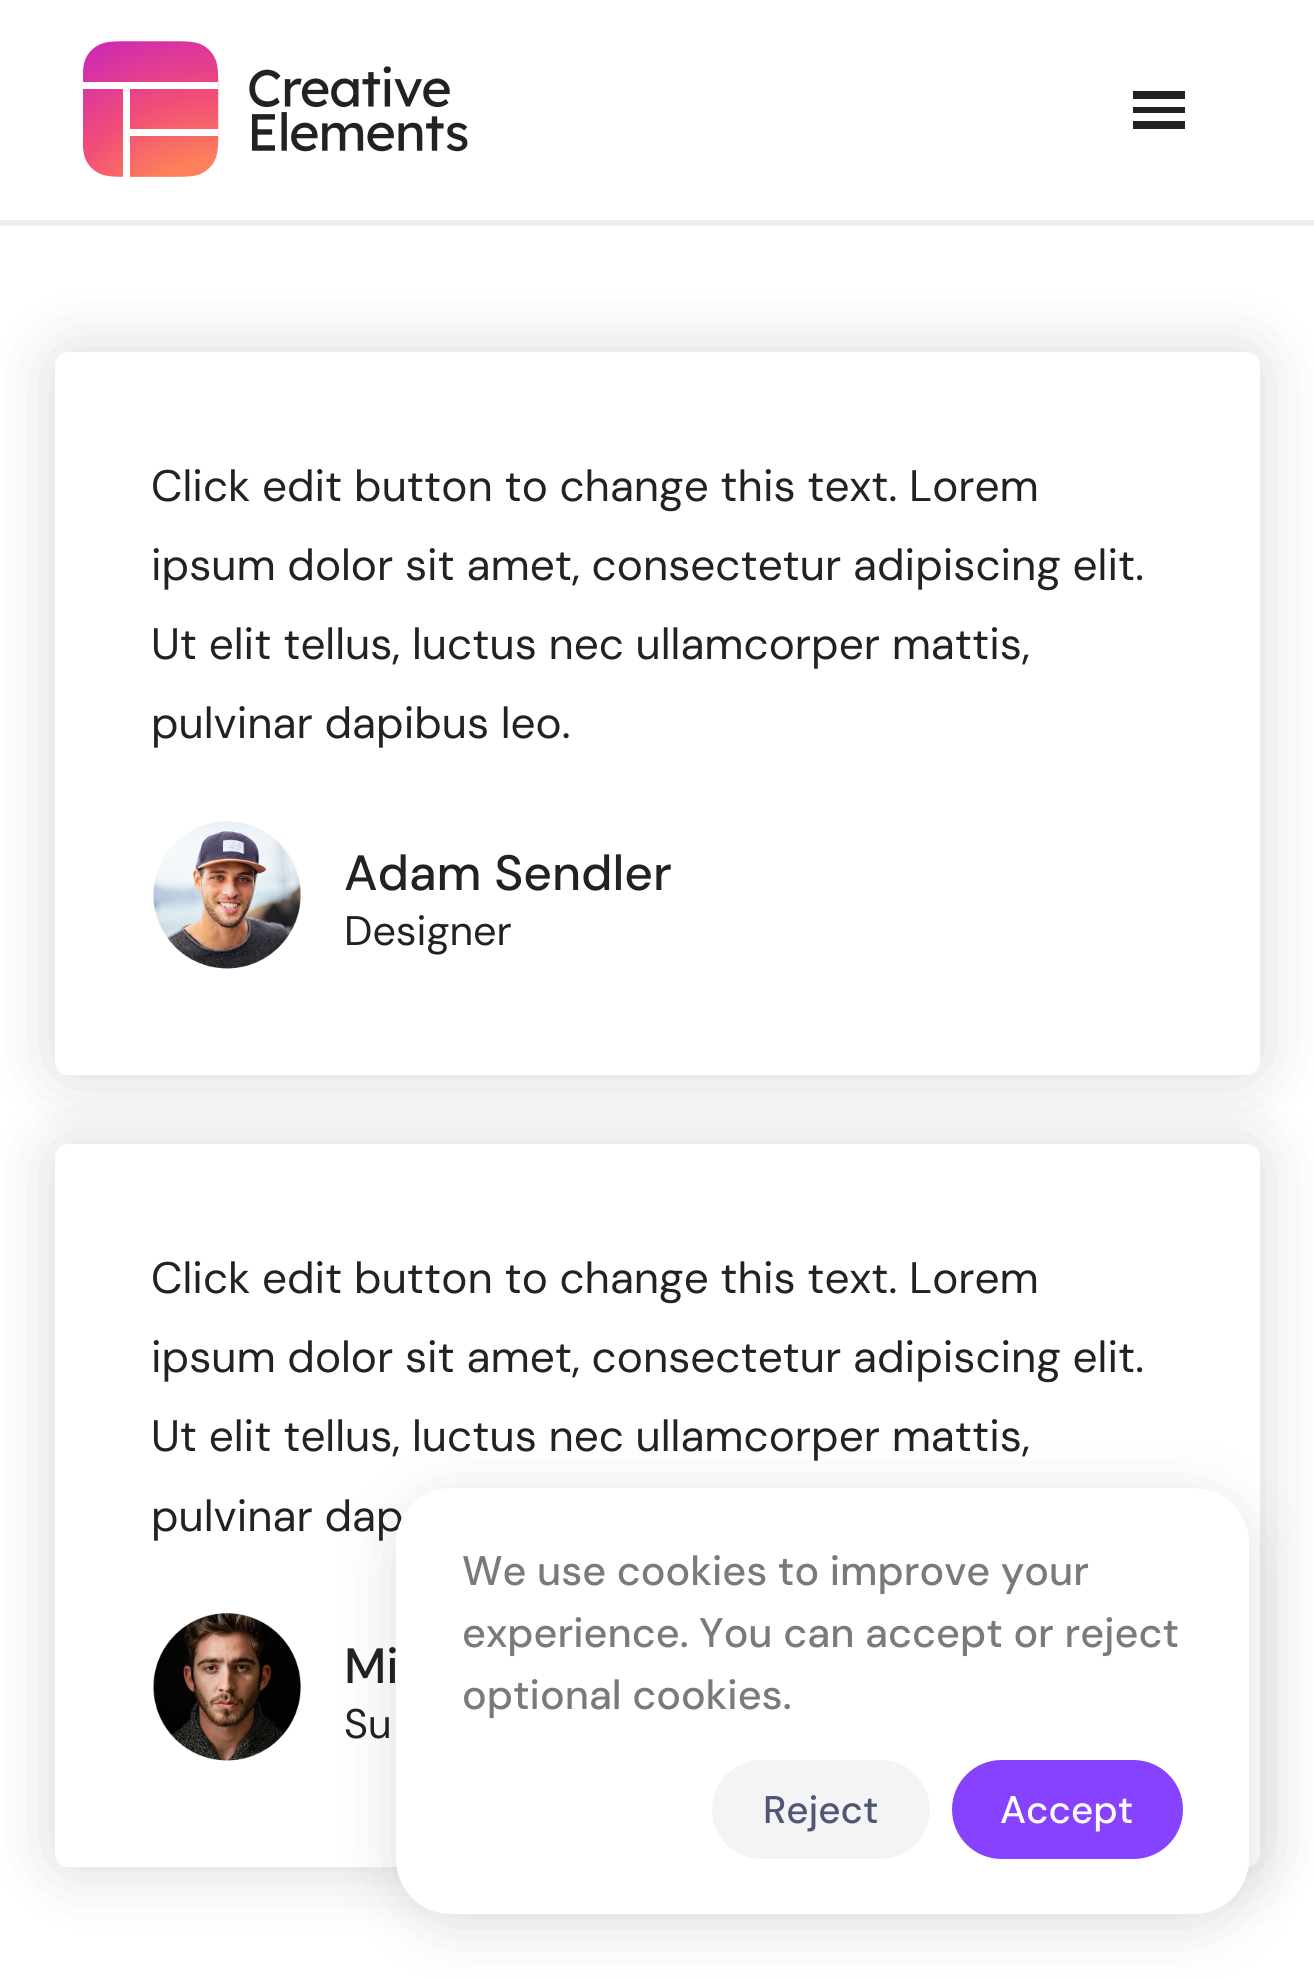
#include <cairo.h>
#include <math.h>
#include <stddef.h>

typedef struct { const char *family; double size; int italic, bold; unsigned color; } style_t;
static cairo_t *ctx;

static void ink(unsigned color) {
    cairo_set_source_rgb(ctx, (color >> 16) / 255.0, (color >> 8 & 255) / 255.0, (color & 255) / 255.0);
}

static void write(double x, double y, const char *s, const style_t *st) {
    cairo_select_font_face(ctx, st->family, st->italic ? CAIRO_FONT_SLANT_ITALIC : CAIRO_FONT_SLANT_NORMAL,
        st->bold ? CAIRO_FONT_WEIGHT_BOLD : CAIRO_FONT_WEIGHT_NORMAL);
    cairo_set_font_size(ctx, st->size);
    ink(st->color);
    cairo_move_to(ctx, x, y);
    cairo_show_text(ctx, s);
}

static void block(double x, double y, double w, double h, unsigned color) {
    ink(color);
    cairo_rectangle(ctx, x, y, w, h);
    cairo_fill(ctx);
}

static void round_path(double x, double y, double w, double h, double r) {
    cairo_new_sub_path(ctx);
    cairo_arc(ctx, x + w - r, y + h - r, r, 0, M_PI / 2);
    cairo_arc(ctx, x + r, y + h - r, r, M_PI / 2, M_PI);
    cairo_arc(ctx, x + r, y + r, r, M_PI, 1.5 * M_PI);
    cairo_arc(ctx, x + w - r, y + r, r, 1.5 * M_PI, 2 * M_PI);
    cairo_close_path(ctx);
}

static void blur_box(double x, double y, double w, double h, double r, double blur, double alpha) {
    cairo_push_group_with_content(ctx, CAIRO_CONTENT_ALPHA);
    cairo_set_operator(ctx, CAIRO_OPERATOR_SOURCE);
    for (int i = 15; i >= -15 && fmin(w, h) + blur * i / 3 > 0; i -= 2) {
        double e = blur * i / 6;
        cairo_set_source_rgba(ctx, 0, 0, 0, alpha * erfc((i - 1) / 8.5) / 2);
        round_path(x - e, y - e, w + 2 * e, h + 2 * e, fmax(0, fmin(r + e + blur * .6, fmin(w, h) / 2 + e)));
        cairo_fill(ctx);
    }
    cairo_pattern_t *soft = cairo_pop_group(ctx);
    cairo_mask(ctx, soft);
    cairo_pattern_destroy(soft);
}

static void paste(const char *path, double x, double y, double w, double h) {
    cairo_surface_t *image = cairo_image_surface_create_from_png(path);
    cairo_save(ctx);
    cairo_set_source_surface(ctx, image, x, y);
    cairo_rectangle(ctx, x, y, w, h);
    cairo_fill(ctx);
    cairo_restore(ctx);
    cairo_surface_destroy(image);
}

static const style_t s1 = {"DM Sans", 44, 0, 0, 0x222222};
static const style_t s2 = {"DM Sans Medium", 49.5, 0, 0, 0x222222};
static const style_t s3 = {"DM Sans", 41.25, 0, 0, 0x222222};
static const style_t s4 = {"DM Sans Medium", 41.25, 0, 0, 0x7a7a7a};
static const style_t s5 = {"DM Sans Medium", 38.5, 0, 0, 0x4f5772};
static const style_t s6 = {"DM Sans Medium", 38.5, 0, 0, 0xffffff};

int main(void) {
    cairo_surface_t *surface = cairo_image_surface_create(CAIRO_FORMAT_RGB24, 1314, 1979);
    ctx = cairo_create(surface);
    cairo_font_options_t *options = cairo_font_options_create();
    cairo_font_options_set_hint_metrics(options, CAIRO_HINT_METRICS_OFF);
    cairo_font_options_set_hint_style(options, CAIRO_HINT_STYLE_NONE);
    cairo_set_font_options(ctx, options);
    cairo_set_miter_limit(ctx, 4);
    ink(0xffffff);
    cairo_paint(ctx);
    cairo_set_source_rgba(ctx, 0.145, 0.094, 0.235, 0.08);
    cairo_new_path(ctx);
    cairo_move_to(ctx, 0, 220);
    cairo_line_to(ctx, 0, 226);
    cairo_line_to(ctx, 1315, 226);
    cairo_line_to(ctx, 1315, 6);
    cairo_line_to(ctx, 1314, 6);
    cairo_line_to(ctx, 1314, 220);
    cairo_close_path(ctx);
    cairo_fill(ctx);
    paste("pic1.png", 83, 41, 385, 136);
    block(1133, 107, 52, 6, 0x222222);
    block(1133, 91, 52, 8, 0x222222);
    block(1133, 121, 52, 8, 0x222222);
    cairo_save(ctx);
    cairo_set_fill_rule(ctx, CAIRO_FILL_RULE_EVEN_ODD);
    cairo_new_path(ctx);
    cairo_move_to(ctx, 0, 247);
    cairo_line_to(ctx, 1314, 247);
    cairo_line_to(ctx, 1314, 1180);
    cairo_line_to(ctx, 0, 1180);
    cairo_close_path(ctx);
    cairo_move_to(ctx, 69, 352);
    cairo_line_to(ctx, 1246, 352);
    cairo_curve_to(ctx, 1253.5, 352, 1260, 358.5, 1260, 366);
    cairo_line_to(ctx, 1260, 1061);
    cairo_curve_to(ctx, 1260, 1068.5, 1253.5, 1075, 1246, 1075);
    cairo_line_to(ctx, 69, 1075);
    cairo_curve_to(ctx, 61.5, 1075, 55, 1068.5, 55, 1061);
    cairo_line_to(ctx, 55, 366);
    cairo_curve_to(ctx, 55, 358.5, 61.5, 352, 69, 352);
    cairo_close_path(ctx);
    cairo_clip(ctx);
    ink(0x000000);
    blur_box(55, 352, 1205, 723, 14, 34.5, 0.15);
    cairo_restore(ctx);
    write(151, 501, "Click edit button to change this text. Lorem", &s1);
    write(151, 580, "ipsum dolor sit amet, consectetur adipiscing elit.", &s1);
    write(151, 659, "Ut elit tellus, luctus nec ullamcorper mattis,", &s1);
    write(151, 738, "pulvinar dapibus leo.", &s1);
    paste("pic2.png", 153, 821, 148, 148);
    write(344, 890, "Adam Sendler", &s2);
    write(344, 945, "Designer", &s3);
    cairo_save(ctx);
    cairo_set_fill_rule(ctx, CAIRO_FILL_RULE_EVEN_ODD);
    cairo_new_path(ctx);
    cairo_move_to(ctx, 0, 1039);
    cairo_line_to(ctx, 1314, 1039);
    cairo_line_to(ctx, 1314, 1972);
    cairo_line_to(ctx, 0, 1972);
    cairo_close_path(ctx);
    cairo_move_to(ctx, 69, 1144);
    cairo_line_to(ctx, 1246, 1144);
    cairo_curve_to(ctx, 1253.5, 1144, 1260, 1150.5, 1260, 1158);
    cairo_line_to(ctx, 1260, 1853);
    cairo_curve_to(ctx, 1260, 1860.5, 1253.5, 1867, 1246, 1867);
    cairo_line_to(ctx, 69, 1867);
    cairo_curve_to(ctx, 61.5, 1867, 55, 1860.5, 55, 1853);
    cairo_line_to(ctx, 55, 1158);
    cairo_curve_to(ctx, 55, 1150.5, 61.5, 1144, 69, 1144);
    cairo_close_path(ctx);
    cairo_clip(ctx);
    ink(0x000000);
    blur_box(55, 1144, 1205, 723, 14, 34.5, 0.15);
    cairo_restore(ctx);
    write(151, 1293, "Click edit button to change this text. Lorem", &s1);
    write(151, 1372, "ipsum dolor sit amet, consectetur adipiscing elit.", &s1);
    write(151, 1451, "Ut elit tellus, luctus nec ullamcorper mattis,", &s1);
    write(151, 1531, "pulvinar dap", &s1);
    paste("pic3.png", 153, 1613, 148, 148);
    write(344, 1683, "Mi", &s2);
    write(344, 1738, "Su", &s3);
    ink(0x000000);
    blur_box(396, 1499, 853, 426, 55, 33, 0.12);
    ink(0xffffff);
    round_path(396, 1488, 853, 426, 55);
    cairo_fill(ctx);
    write(462, 1585, "We use cookies to improve your", &s4);
    write(462, 1647, "experience. You can accept or reject", &s4);
    write(462, 1709, "optional cookies.", &s4);
    ink(0xf4f4f6);
    round_path(712, 1760, 218, 99, 49.5);
    cairo_fill(ctx);
    write(763, 1823, "Reject", &s5);
    ink(0x8742ff);
    round_path(952, 1760, 231, 99, 49.5);
    cairo_fill(ctx);
    write(1000, 1823, "Accept", &s6);
    cairo_surface_write_to_png(surface, "screenshot.png");
    cairo_font_options_destroy(options);
    cairo_destroy(ctx);
    cairo_surface_destroy(surface);
    return 0;
}
